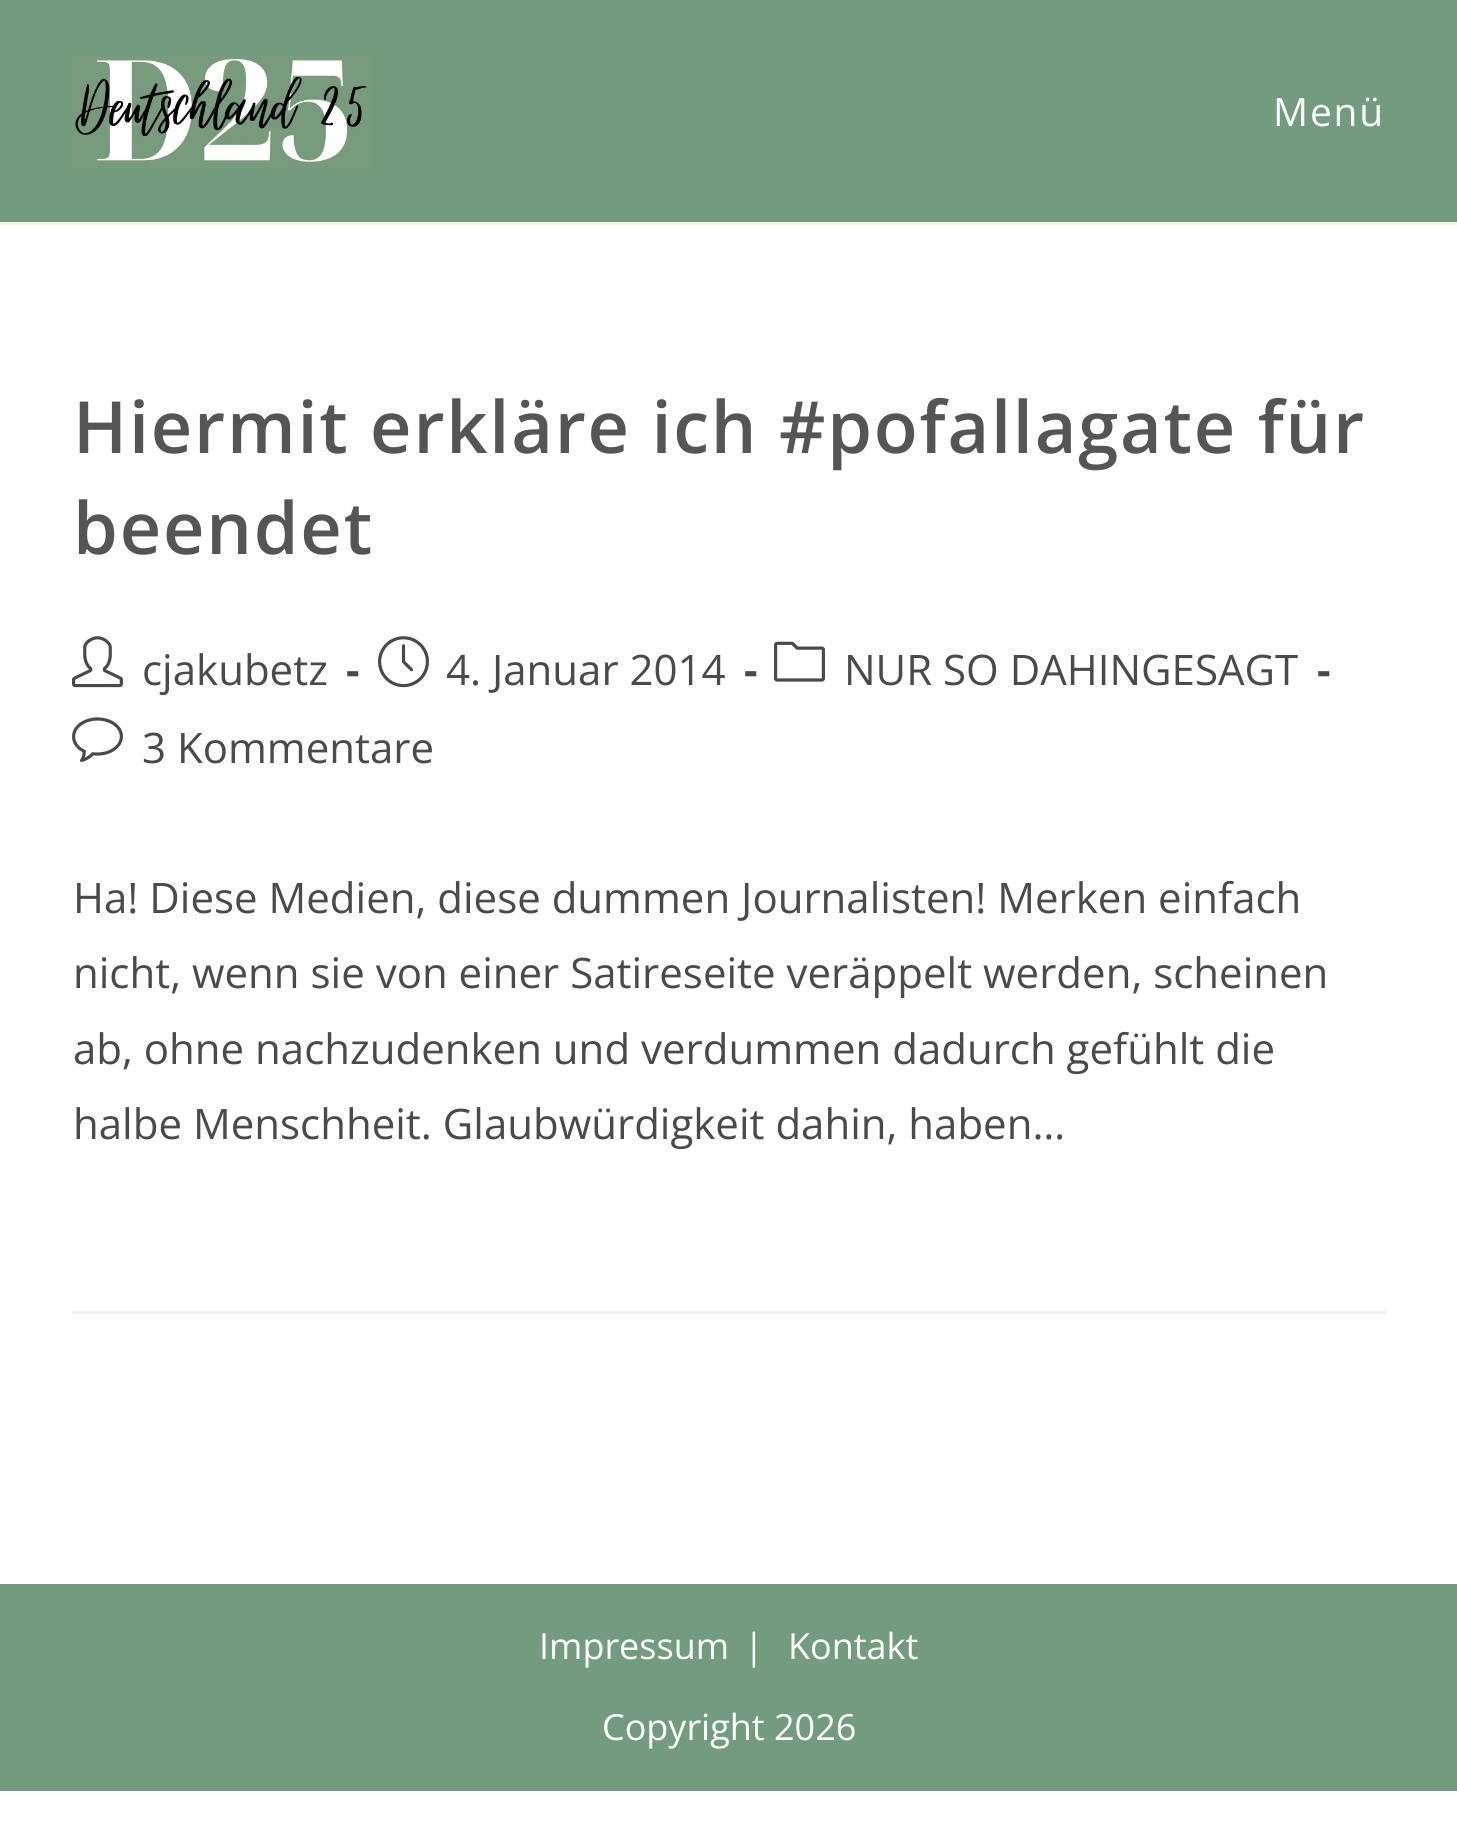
#include <cairo.h>
#include <math.h>
#include <stddef.h>

typedef struct { const char *family; double size; int italic, bold; unsigned color; } style_t;
static cairo_t *ctx;

static void ink(unsigned color) {
    cairo_set_source_rgb(ctx, (color >> 16) / 255.0, (color >> 8 & 255) / 255.0, (color & 255) / 255.0);
}

static void write(double x, double y, const char *s, const style_t *st) {
    cairo_select_font_face(ctx, st->family, st->italic ? CAIRO_FONT_SLANT_ITALIC : CAIRO_FONT_SLANT_NORMAL,
        st->bold ? CAIRO_FONT_WEIGHT_BOLD : CAIRO_FONT_WEIGHT_NORMAL);
    cairo_set_font_size(ctx, st->size);
    ink(st->color);
    cairo_move_to(ctx, x, y);
    cairo_show_text(ctx, s);
}

static void write_spaced(double x, double y, const char *s, double letter, double word) {
    cairo_move_to(ctx, x, y);
    while (*s) {
        char ch[5] = {0};
        int n = 0;
        do ch[n++] = *s++; while ((*s & 0xC0) == 0x80);
        cairo_show_text(ctx, ch);
        cairo_rel_move_to(ctx, letter + word * (*ch == ' '), 0);
    }
}

static void block(double x, double y, double w, double h, unsigned color) {
    ink(color);
    cairo_rectangle(ctx, x, y, w, h);
    cairo_fill(ctx);
}

static void paste(const char *path, double x, double y, double w, double h) {
    cairo_surface_t *image = cairo_image_surface_create_from_png(path);
    cairo_save(ctx);
    cairo_set_source_surface(ctx, image, x, y);
    cairo_rectangle(ctx, x, y, w, h);
    cairo_fill(ctx);
    cairo_restore(ctx);
    cairo_surface_destroy(image);
}

static const style_t s1 = {"Open Sans", 42, 0, 0, 0x4a4a4a};
static const style_t s2 = {"Open Sans", 42, 0, 1, 0x4a4a4a};
static const style_t s3 = {"Open Sans", 36, 0, 0, 0xffffff};

int main(void) {
    cairo_surface_t *surface = cairo_image_surface_create(CAIRO_FORMAT_RGB24, 1457, 1845);
    ctx = cairo_create(surface);
    cairo_font_options_t *options = cairo_font_options_create();
    cairo_font_options_set_hint_metrics(options, CAIRO_HINT_METRICS_OFF);
    cairo_font_options_set_hint_style(options, CAIRO_HINT_STYLE_NONE);
    cairo_set_font_options(ctx, options);
    cairo_set_miter_limit(ctx, 4);
    ink(0xffffff);
    cairo_paint(ctx);
    block(0, 0, 1457, 222, 0x739c7f);
    block(0, 222, 1457, 3, 0xf1f1f1);
    paste("pic1.png", 72, 54, 300, 114);
    cairo_select_font_face(ctx, "Open Sans", CAIRO_FONT_SLANT_NORMAL, CAIRO_FONT_WEIGHT_NORMAL);
    cairo_set_font_size(ctx, 39);
    ink(0xffffff);
    write_spaced(1273, 126, "Menü", 1.8, 0);
    block(72, 1311, 1314, 3, 0xf1f1f1);
    cairo_select_font_face(ctx, "Open Sans SemiBold", CAIRO_FONT_SLANT_NORMAL, CAIRO_FONT_WEIGHT_NORMAL);
    cairo_set_font_size(ctx, 72);
    ink(0x555555);
    write_spaced(73, 453, "Hiermit erkläre ich #pofallagate für", 1.8, 0);
    write_spaced(73, 554, "beendet", 1.8, 0);
    paste("pic2.png", 72, 636, 51, 52);
    write(142, 685, "cjakubetz", &s1);
    write(346, 685, "-", &s2);
    paste("pic3.png", 378, 636, 51, 52);
    write(446, 685, "4. Januar 2014", &s1);
    write(744, 685, "-", &s2);
    paste("pic4.png", 774, 641, 51, 41);
    write(844, 685, "NUR SO DAHINGESAGT", &s1);
    write(1317, 685, "-", &s2);
    paste("pic5.png", 72, 717, 51, 45);
    write(142, 763, "3 Kommentare", &s1);
    write(73, 913, "Ha! Diese Medien, diese dummen Journalisten! Merken einfach", &s1);
    write(73, 988, "nicht, wenn sie von einer Satireseite veräppelt werden, scheinen", &s1);
    write(73, 1064, "ab, ohne nachzudenken und verdummen dadurch gefühlt die", &s1);
    write(73, 1139, "halbe Menschheit. Glaubwürdigkeit dahin, haben…", &s1);
    block(0, 1584, 1457, 207, 0x739c7f);
    write(539, 1659, "Impressum", &s3);
    write(744, 1659, "|", &s3);
    write(788, 1659, "Kontakt", &s3);
    write(602, 1740, "Copyright 2026", &s3);
    cairo_surface_write_to_png(surface, "screenshot.png");
    cairo_font_options_destroy(options);
    cairo_destroy(ctx);
    cairo_surface_destroy(surface);
    return 0;
}
